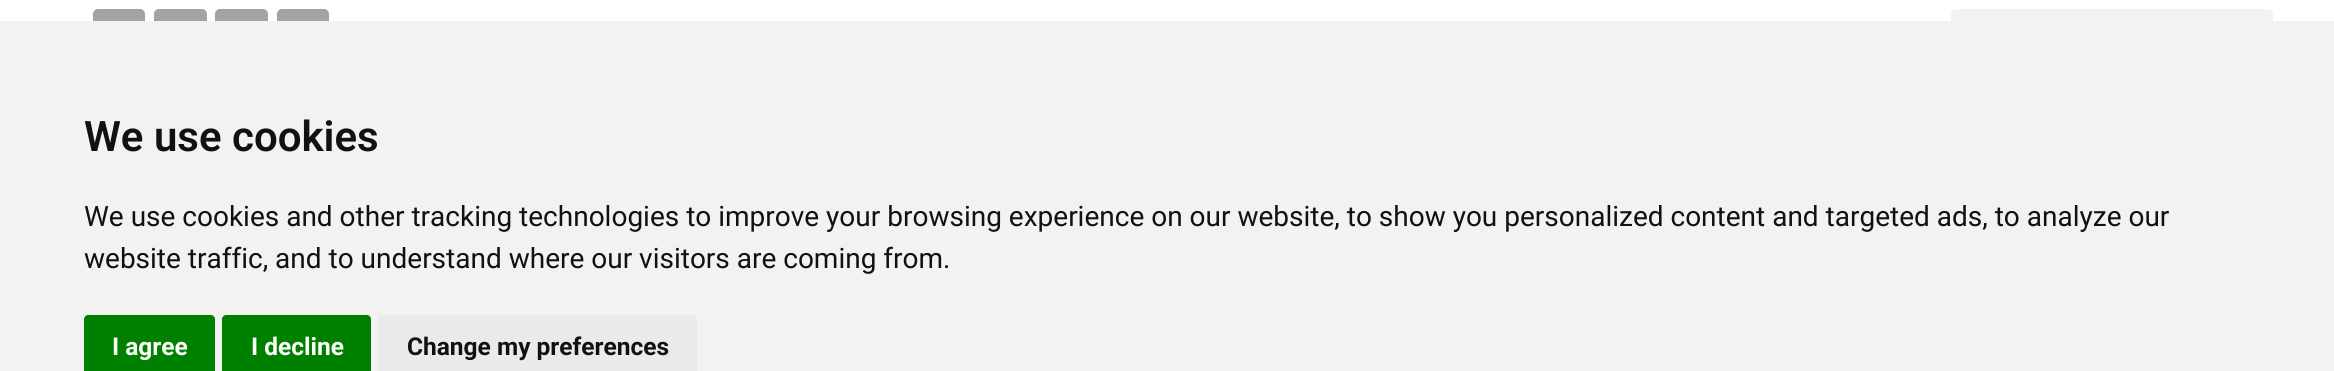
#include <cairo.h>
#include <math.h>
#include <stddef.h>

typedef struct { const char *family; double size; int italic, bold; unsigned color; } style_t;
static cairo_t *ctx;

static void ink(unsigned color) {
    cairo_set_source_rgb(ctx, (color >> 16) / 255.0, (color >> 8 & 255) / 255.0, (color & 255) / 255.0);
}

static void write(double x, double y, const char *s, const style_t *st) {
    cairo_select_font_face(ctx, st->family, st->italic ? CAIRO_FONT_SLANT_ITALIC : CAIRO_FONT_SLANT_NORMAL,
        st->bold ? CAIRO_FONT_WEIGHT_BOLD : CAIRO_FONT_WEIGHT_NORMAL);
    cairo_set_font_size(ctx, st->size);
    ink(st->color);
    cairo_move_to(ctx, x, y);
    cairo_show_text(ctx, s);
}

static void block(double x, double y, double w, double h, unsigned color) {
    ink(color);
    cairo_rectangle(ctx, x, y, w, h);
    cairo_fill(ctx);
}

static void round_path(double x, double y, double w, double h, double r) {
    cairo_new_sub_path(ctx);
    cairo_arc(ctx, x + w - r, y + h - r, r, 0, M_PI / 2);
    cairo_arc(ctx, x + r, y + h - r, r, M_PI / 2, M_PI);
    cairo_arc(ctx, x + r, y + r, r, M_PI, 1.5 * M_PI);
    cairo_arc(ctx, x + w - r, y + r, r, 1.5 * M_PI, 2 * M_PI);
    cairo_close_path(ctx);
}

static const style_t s1 = {"Roboto SemiBold", 42, 0, 0, 0x111111};
static const style_t s2 = {"Roboto", 28, 0, 0, 0x111111};
static const style_t s3 = {"Roboto", 24.5, 0, 1, 0xffffff};
static const style_t s4 = {"Roboto", 24.5, 0, 1, 0x111111};

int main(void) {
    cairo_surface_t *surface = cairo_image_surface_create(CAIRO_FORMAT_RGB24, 2334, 371);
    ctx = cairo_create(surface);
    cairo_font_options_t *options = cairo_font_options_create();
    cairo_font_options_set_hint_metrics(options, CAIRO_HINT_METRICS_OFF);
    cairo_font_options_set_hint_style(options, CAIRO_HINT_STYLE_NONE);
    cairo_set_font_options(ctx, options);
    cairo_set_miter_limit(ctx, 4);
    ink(0xffffff);
    cairo_paint(ctx);
    ink(0xa3a3a3);
    round_path(93, 9, 52, 52, 5);
    cairo_fill(ctx);
    round_path(154, 9, 53, 52, 5);
    cairo_fill(ctx);
    round_path(215, 9, 53, 52, 5);
    cairo_fill(ctx);
    round_path(277, 9, 52, 52, 5);
    cairo_fill(ctx);
    ink(0xf1f2f3);
    round_path(1951, 9, 322, 52, 5);
    cairo_fill(ctx);
    block(0, 21, 2334, 350, 0xf2f2f2);
    write(84, 151, "We use cookies", &s1);
    write(84, 226, "We use cookies and other tracking technologies to improve your browsing experience on our website, to show you personalized content and targeted ads, to analyze our", &s2);
    write(84, 268, "website traffic, and to understand where our visitors are coming from.", &s2);
    ink(0x008000);
    cairo_new_path(ctx);
    cairo_move_to(ctx, 88, 315);
    cairo_line_to(ctx, 211, 315);
    cairo_curve_to(ctx, 213, 315, 215, 317, 215, 319);
    cairo_line_to(ctx, 215, 371);
    cairo_line_to(ctx, 84, 371);
    cairo_line_to(ctx, 84, 319);
    cairo_curve_to(ctx, 84, 317, 86, 315, 88, 315);
    cairo_close_path(ctx);
    cairo_fill(ctx);
    write(112, 355, "I agree", &s3);
    ink(0x008000);
    cairo_new_path(ctx);
    cairo_move_to(ctx, 226, 315);
    cairo_line_to(ctx, 367, 315);
    cairo_curve_to(ctx, 369, 315, 371, 317, 371, 319);
    cairo_line_to(ctx, 371, 371);
    cairo_line_to(ctx, 222, 371);
    cairo_line_to(ctx, 222, 319);
    cairo_curve_to(ctx, 222, 317, 224, 315, 226, 315);
    cairo_close_path(ctx);
    cairo_fill(ctx);
    write(251, 355, "I decline", &s3);
    ink(0xeaeaea);
    cairo_new_path(ctx);
    cairo_move_to(ctx, 382, 315);
    cairo_line_to(ctx, 693, 315);
    cairo_curve_to(ctx, 695, 315, 697, 317, 697, 319);
    cairo_line_to(ctx, 697, 371);
    cairo_line_to(ctx, 378, 371);
    cairo_line_to(ctx, 378, 319);
    cairo_curve_to(ctx, 378, 317, 380, 315, 382, 315);
    cairo_close_path(ctx);
    cairo_fill(ctx);
    write(407, 355, "Change my preferences", &s4);
    cairo_surface_write_to_png(surface, "screenshot.png");
    cairo_font_options_destroy(options);
    cairo_destroy(ctx);
    cairo_surface_destroy(surface);
    return 0;
}
